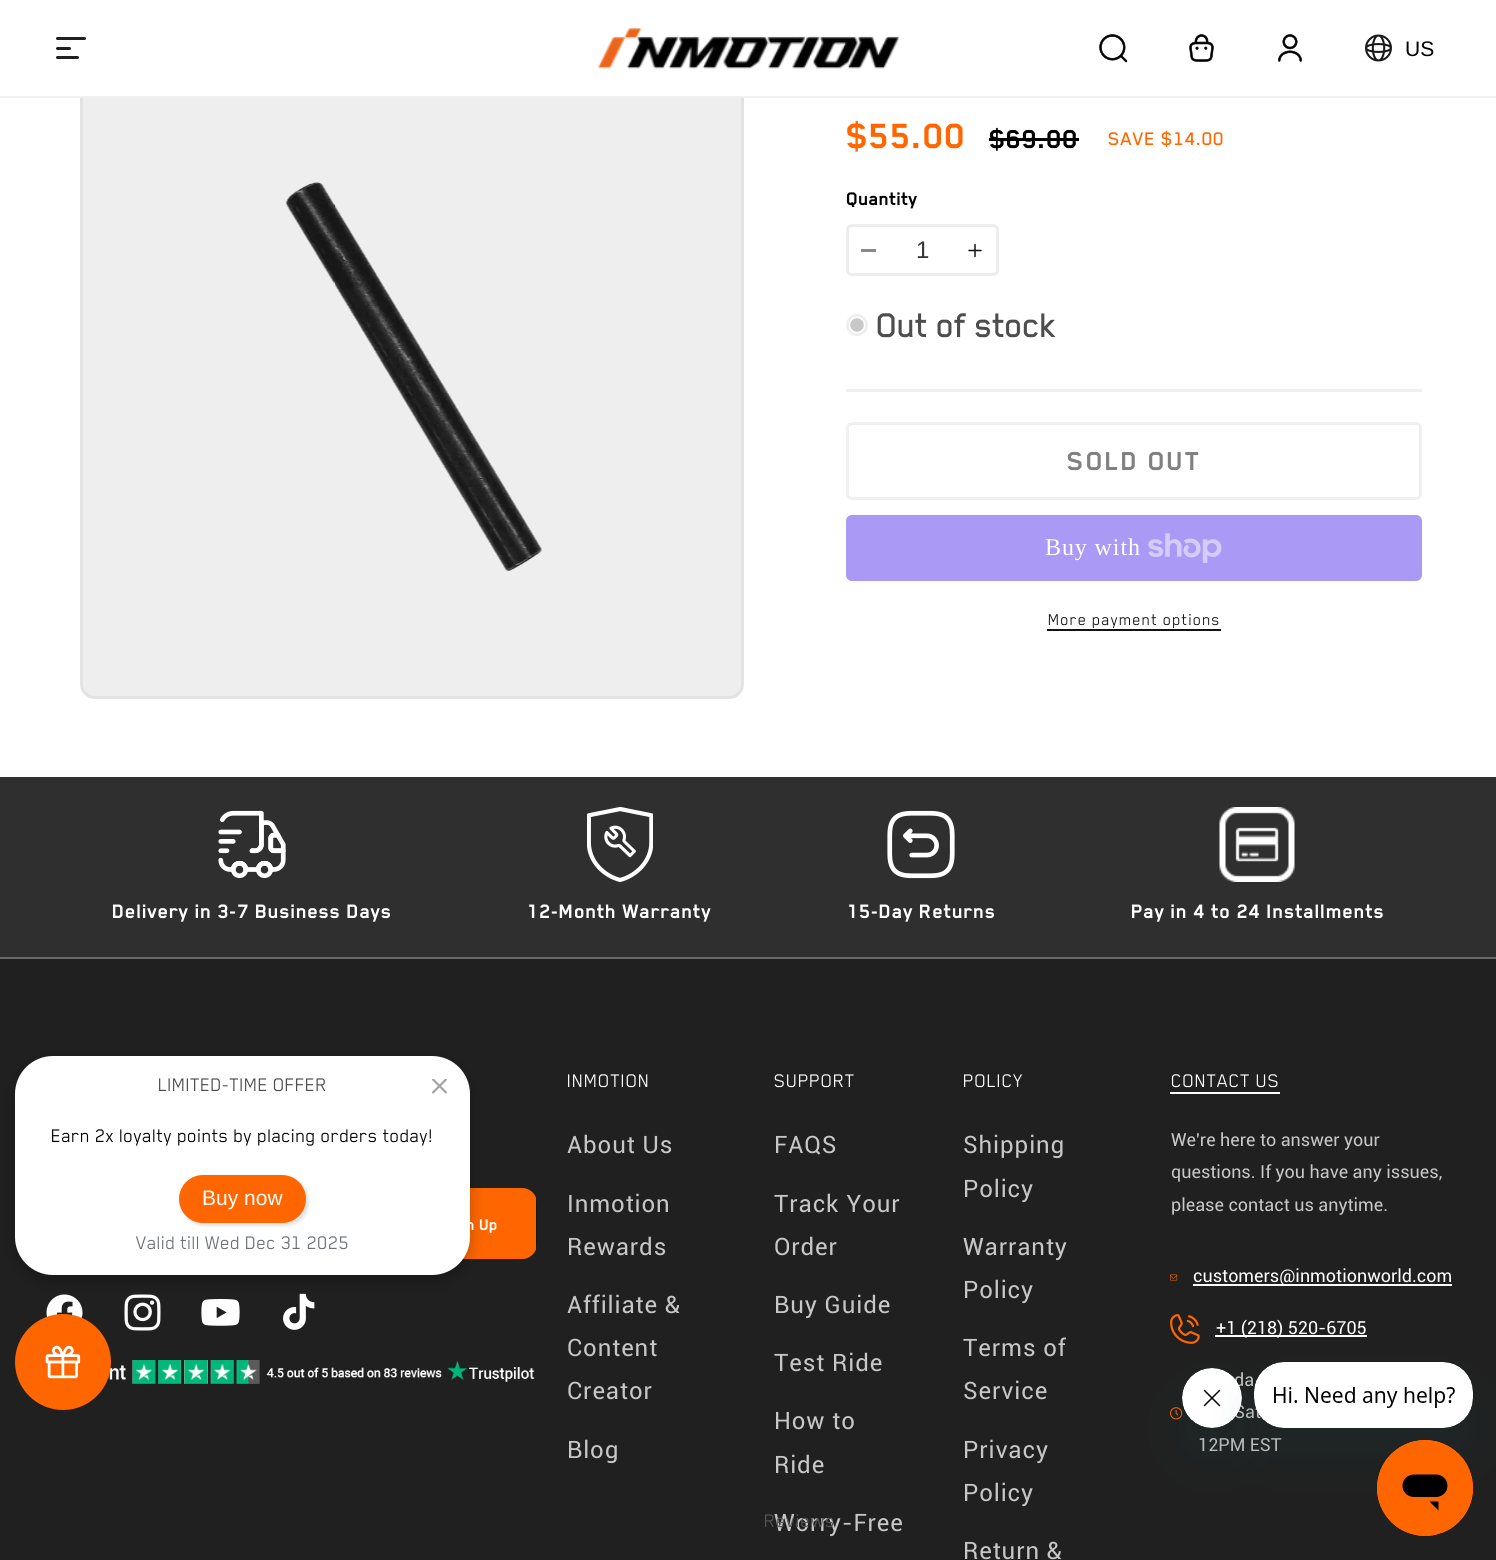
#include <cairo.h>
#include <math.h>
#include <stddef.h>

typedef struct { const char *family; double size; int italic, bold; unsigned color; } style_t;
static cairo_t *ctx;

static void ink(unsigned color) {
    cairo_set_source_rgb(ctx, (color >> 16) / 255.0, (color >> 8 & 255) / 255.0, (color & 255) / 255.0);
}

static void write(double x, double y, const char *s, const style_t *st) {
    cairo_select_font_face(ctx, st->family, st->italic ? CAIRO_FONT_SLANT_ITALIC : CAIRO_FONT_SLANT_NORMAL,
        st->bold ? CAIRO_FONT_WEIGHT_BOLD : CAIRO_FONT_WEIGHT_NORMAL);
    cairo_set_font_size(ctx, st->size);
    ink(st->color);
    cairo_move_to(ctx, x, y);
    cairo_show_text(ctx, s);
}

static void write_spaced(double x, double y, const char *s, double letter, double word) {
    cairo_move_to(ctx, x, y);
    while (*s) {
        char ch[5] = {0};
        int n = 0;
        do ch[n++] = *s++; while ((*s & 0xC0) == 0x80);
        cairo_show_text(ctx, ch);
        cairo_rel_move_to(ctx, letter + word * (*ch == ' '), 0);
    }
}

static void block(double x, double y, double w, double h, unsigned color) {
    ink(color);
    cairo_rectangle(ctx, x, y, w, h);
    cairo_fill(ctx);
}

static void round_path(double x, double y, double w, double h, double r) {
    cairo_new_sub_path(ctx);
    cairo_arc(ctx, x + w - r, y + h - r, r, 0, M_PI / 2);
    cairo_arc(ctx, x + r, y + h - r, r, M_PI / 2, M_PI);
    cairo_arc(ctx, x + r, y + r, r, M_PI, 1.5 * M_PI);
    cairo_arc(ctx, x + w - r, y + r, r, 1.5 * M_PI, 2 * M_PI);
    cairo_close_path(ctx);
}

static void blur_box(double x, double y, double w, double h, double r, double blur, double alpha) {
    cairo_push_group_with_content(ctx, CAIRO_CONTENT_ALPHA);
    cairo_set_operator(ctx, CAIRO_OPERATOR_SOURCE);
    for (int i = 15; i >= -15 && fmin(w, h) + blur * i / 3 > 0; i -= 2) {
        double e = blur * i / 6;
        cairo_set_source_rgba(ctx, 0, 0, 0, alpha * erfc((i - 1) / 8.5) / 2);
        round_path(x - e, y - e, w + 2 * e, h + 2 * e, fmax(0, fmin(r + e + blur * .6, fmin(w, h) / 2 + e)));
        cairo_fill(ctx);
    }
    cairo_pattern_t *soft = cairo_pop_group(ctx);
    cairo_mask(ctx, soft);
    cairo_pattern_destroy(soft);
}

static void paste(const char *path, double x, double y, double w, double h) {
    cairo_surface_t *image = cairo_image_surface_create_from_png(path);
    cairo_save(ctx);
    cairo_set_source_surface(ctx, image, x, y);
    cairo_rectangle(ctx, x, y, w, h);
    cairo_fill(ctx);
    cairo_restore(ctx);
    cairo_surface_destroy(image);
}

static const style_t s1 = {"Liberation Sans", 21, 0, 0, 0x000000};
static const style_t s2 = {"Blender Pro", 21, 0, 1, 0x000000};
static const style_t s3 = {"Liberation Sans", 24, 0, 0, 0x363636};
static const style_t s4 = {"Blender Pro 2", 37.5, 0, 1, 0x4d4d4d};
static const style_t s5 = {"Blender Pro", 21, 0, 0, 0x4d4d4d};
static const style_t s6 = {"Blender Pro", 21, 0, 0, 0x000000};
static const style_t s7 = {"Liberation Sans", 21, 0, 0, 0xffffff};
static const style_t s8 = {"Blender Pro", 21, 0, 0, 0x6d7175};
static const style_t s9 = {"Blender Pro", 18, 0, 1, 0xffffff};
static const style_t s10 = {"Roboto", 18, 0, 0, 0xc7c7c7};
static const style_t s11 = {"Roboto", 18, 0, 0, 0xffffff};

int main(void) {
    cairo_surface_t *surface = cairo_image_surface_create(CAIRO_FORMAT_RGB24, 1496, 1560);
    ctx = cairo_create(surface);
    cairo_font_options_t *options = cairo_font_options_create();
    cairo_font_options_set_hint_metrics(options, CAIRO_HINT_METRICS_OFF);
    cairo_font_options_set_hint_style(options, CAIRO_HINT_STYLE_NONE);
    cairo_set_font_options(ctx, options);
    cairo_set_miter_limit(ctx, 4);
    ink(0xffffff);
    cairo_paint(ctx);
    ink(0xeeeeee);
    round_path(80, 36, 664, 663, 15);
    cairo_fill(ctx);
    round_path(81.5, 37.5, 661, 660, 13.5);
    cairo_set_source_rgba(ctx, 0.745, 0.745, 0.745, 0.22);
    cairo_set_line_width(ctx, 3);
    cairo_stroke(ctx);
    block(80, 36, 664, 60, 0xffffff);
    block(0, 96, 1496, 2, 0xf0f0f0);
    ink(0x202020);
    round_path(56, 37, 30, 3, 1.5);
    cairo_fill(ctx);
    round_path(56, 56, 23, 3, 1.5);
    cairo_fill(ctx);
    round_path(56, 47, 15, 3, 1.5);
    cairo_fill(ctx);
    paste("pic1.png", 598, 28, 301, 41);
    paste("pic2.png", 1099, 34, 29, 29);
    paste("pic3.png", 1189, 34, 25, 28);
    paste("pic4.png", 1278, 34, 24, 28);
    paste("pic5.png", 1365, 34, 27, 28);
    write(1405, 56, "US", &s1);
    paste("pic6.png", 285, 182, 257, 389);
    cairo_select_font_face(ctx, "Blender Pro", CAIRO_FONT_SLANT_NORMAL, CAIRO_FONT_WEIGHT_BOLD);
    cairo_set_font_size(ctx, 40.5);
    ink(0xff6600);
    write_spaced(846, 148, "$55.00", 0.45, 0);
    cairo_set_font_size(ctx, 30);
    ink(0x000000);
    write_spaced(989, 148, "$69.00", 0.45, 0);
    block(989, 138, 90, 3, 0x000000);
    cairo_select_font_face(ctx, "Blender Pro Medium", CAIRO_FONT_SLANT_NORMAL, CAIRO_FONT_WEIGHT_NORMAL);
    cairo_set_font_size(ctx, 21);
    ink(0xff6600);
    write_spaced(1108, 145, "SAVE $14.00", 0.45, 0);
    write(846, 205, "Quantity", &s2);
    round_path(847.5, 225.5, 150, 49, 4.5);
    ink(0xededed);
    cairo_stroke(ctx);
    block(861, 249, 15, 3, 0x898989);
    write(916, 258, "1", &s3);
    paste("pic7.png", 968, 243, 14, 15);
    ink(0xefefef);
    cairo_arc(ctx, 857, 325, 11, 0, 2 * M_PI);
    cairo_fill(ctx);
    ink(0xc8c8c8);
    cairo_arc(ctx, 857, 325, 7.5, 0, 2 * M_PI);
    cairo_fill_preserve(ctx);
    ink(0xffffff);
    cairo_set_line_width(ctx, 1.5);
    cairo_stroke(ctx);
    write(876, 337, "Out of stock", &s4);
    block(846, 389, 576, 3, 0xf0f0f0);
    round_path(847.5, 423.5, 573, 75, 4.5);
    cairo_set_line_width(ctx, 3);
    cairo_stroke(ctx);
    cairo_select_font_face(ctx, "Blender Pro", CAIRO_FONT_SLANT_NORMAL, CAIRO_FONT_WEIGHT_BOLD);
    cairo_set_font_size(ctx, 30);
    ink(0x808080);
    write_spaced(1067, 470, "SOLD OUT", 1.5, 0);
    ink(0xaa99f5);
    round_path(846, 515, 576, 66, 6);
    cairo_fill(ctx);
    cairo_select_font_face(ctx, "Liberation Serif", CAIRO_FONT_SLANT_NORMAL, CAIRO_FONT_WEIGHT_NORMAL);
    cairo_set_font_size(ctx, 24);
    ink(0xffffff);
    write_spaced(1045, 555, "Buy with", 0.9, 0);
    paste("pic8.png", 1148, 533, 74, 30);
    cairo_select_font_face(ctx, "Blender Pro", CAIRO_FONT_SLANT_NORMAL, CAIRO_FONT_WEIGHT_NORMAL);
    cairo_set_font_size(ctx, 18);
    ink(0x121212);
    write_spaced(1048, 625, "More payment options", 0.75, 0);
    block(1047, 629, 174, 2, 0x121212);
    block(0, 959, 1496, 601, 0x202020);
    cairo_select_font_face(ctx, "Roboto", CAIRO_FONT_SLANT_NORMAL, CAIRO_FONT_WEIGHT_NORMAL);
    cairo_set_font_size(ctx, 24);
    ink(0xc7c7c7);
    write_spaced(774, 1531, "Worry-Free", 0.9, 0);
    cairo_select_font_face(ctx, "Blender Pro", CAIRO_FONT_SLANT_NORMAL, CAIRO_FONT_WEIGHT_NORMAL);
    cairo_set_font_size(ctx, 21);
    ink(0x565656);
    write_spaced(764, 1527, "Reviews", 0.45, 0);
    block(0, 777, 1496, 180, 0x2f2f2f);
    block(0, 957, 1496, 2, 0x686868);
    paste("pic9.png", 218, 810, 68, 69);
    cairo_select_font_face(ctx, "Blender Pro", CAIRO_FONT_SLANT_NORMAL, CAIRO_FONT_WEIGHT_BOLD);
    cairo_set_font_size(ctx, 22.5);
    ink(0xffffff);
    write_spaced(112, 918, "Delivery in 3-7 Business Days", 0.45, 0);
    paste("pic10.png", 587, 807, 66, 75);
    write_spaced(527, 918, "12-Month Warranty", 0.45, 0);
    paste("pic11.png", 887, 810, 68, 69);
    write_spaced(847, 918, "15-Day Returns", 0.45, 0);
    paste("pic12.png", 1219, 807, 76, 75);
    write_spaced(1131, 918, "Pay in 4 to 24 Installments", 0.45, 0);
    round_path(46, 1189, 490, 69, 16);
    ink(0x181818);
    cairo_set_line_width(ctx, 2);
    cairo_stroke(ctx);
    cairo_save(ctx);
    round_path(45, 1188, 492, 71, 15);
    cairo_clip(ctx);
    block(463, 1188, 73, 71, 0xff6600);
    cairo_restore(ctx);
    paste("pic14.png", 46, 1294, 37, 24);
    paste("pic15.png", 124, 1294, 37, 37);
    paste("pic16.png", 201, 1299, 39, 27);
    paste("pic17.png", 283, 1293, 32, 37);
    ink(0x000000);
    blur_box(15, 1062, 455, 219, 38, 7.5, 0.25);
    ink(0xffffff);
    round_path(15, 1056, 455, 219, 38);
    cairo_fill(ctx);
    write(158, 1091, "LIMITED-TIME OFFER", &s5);
    write(51, 1142, "Earn 2x loyalty points by placing orders today!", &s6);
    ink(0x000000);
    blur_box(182, 1178, 127, 48, 24, 1.5, 0.11);
    ink(0xff6600);
    round_path(179, 1175, 127, 48, 24);
    cairo_fill(ctx);
    write(202, 1205, "Buy now", &s7);
    write(136, 1249, "Valid till Wed Dec 31 2025", &s8);
    paste("pic13.png", 432, 1079, 15, 15);
    write(466, 1230, "n Up", &s9);
    paste("pic18.png", 107, 1360, 428, 24);
    cairo_select_font_face(ctx, "Blender Pro", CAIRO_FONT_SLANT_NORMAL, CAIRO_FONT_WEIGHT_NORMAL);
    cairo_set_font_size(ctx, 21);
    write_spaced(567, 1087, "INMOTION", 0.45, 0);
    cairo_select_font_face(ctx, "Roboto", CAIRO_FONT_SLANT_NORMAL, CAIRO_FONT_WEIGHT_NORMAL);
    cairo_set_font_size(ctx, 24);
    ink(0xc7c7c7);
    write_spaced(567, 1153, "About Us", 0.9, 0);
    write_spaced(567, 1212, "Inmotion", 0.9, 0);
    write_spaced(567, 1255, "Rewards", 0.9, 0);
    write_spaced(567, 1313, "Affiliate &", 0.9, 0);
    write_spaced(567, 1356, "Content", 0.9, 0);
    write_spaced(567, 1399, "Creator", 0.9, 0);
    write_spaced(567, 1458, "Blog", 0.9, 0);
    cairo_select_font_face(ctx, "Blender Pro", CAIRO_FONT_SLANT_NORMAL, CAIRO_FONT_WEIGHT_NORMAL);
    cairo_set_font_size(ctx, 21);
    ink(0xffffff);
    write_spaced(774, 1087, "SUPPORT", 0.45, 0);
    cairo_select_font_face(ctx, "Roboto", CAIRO_FONT_SLANT_NORMAL, CAIRO_FONT_WEIGHT_NORMAL);
    cairo_set_font_size(ctx, 24);
    ink(0xc7c7c7);
    write_spaced(774, 1153, "FAQS", 0.9, 0);
    write_spaced(774, 1212, "Track Your", 0.9, 0);
    write_spaced(774, 1255, "Order", 0.9, 0);
    write_spaced(774, 1313, "Buy Guide", 0.9, 0);
    write_spaced(774, 1371, "Test Ride", 0.9, 0);
    write_spaced(774, 1429, "How to", 0.9, 0);
    write_spaced(774, 1473, "Ride", 0.9, 0);
    cairo_select_font_face(ctx, "Blender Pro", CAIRO_FONT_SLANT_NORMAL, CAIRO_FONT_WEIGHT_NORMAL);
    cairo_set_font_size(ctx, 21);
    ink(0xffffff);
    write_spaced(963, 1087, "POLICY", 0.45, 0);
    cairo_select_font_face(ctx, "Roboto", CAIRO_FONT_SLANT_NORMAL, CAIRO_FONT_WEIGHT_NORMAL);
    cairo_set_font_size(ctx, 24);
    ink(0xc7c7c7);
    write_spaced(963, 1153, "Shipping", 0.9, 0);
    write_spaced(963, 1197, "Policy", 0.9, 0);
    write_spaced(963, 1255, "Warranty", 0.9, 0);
    write_spaced(963, 1298, "Policy", 0.9, 0);
    write_spaced(963, 1356, "Terms of", 0.9, 0);
    write_spaced(963, 1399, "Service", 0.9, 0);
    write_spaced(963, 1458, "Privacy", 0.9, 0);
    write_spaced(963, 1501, "Policy", 0.9, 0);
    write_spaced(963, 1559, "Return &", 0.9, 0);
    cairo_select_font_face(ctx, "Blender Pro", CAIRO_FONT_SLANT_NORMAL, CAIRO_FONT_WEIGHT_NORMAL);
    cairo_set_font_size(ctx, 21);
    ink(0xffffff);
    write_spaced(1171, 1087, "CONTACT US", 0.45, 0);
    block(1170, 1092, 110, 2, 0xffffff);
    write(1171, 1146, "We're here to answer your", &s10);
    write(1171, 1178, "questions. If you have any issues,", &s10);
    write(1171, 1211, "please contact us anytime.", &s10);
    paste("pic19.png", 1170, 1274, 8, 7);
    block(1193, 1284, 259, 2, 0xffffff);
    write(1193, 1282, "customers@inmotionworld.com", &s11);
    paste("pic20.png", 1170, 1314, 30, 30);
    block(1215, 1335, 152, 2, 0xffffff);
    write(1216, 1334, "+1 (218) 520-6705", &s11);
    paste("pic21.png", 1170, 1407, 13, 13);
    write(1234, 1386, "da", &s10);
    write(1234, 1418, "Sat", &s10);
    write(1198, 1451, "12PM EST", &s10);
    ink(0xff6600);
    cairo_new_path(ctx);
    cairo_arc(ctx, 63, 1362, 48, 0, 2 * M_PI);
    cairo_fill(ctx);
    paste("pic22.png", 45, 1345, 36, 34);
    ink(0x17494d);
    blur_box(1182, 1398, 60, 60, 30, 22.5, 0.15);
    paste("pic24.png", 1182, 1368, 60, 60);
    blur_box(1254, 1392, 219, 66, 30, 22.5, 0.15);
    paste("pic23.png", 1254, 1362, 219, 66);
    paste("pic25.png", 1377, 1440, 96, 96);
    cairo_surface_write_to_png(surface, "screenshot.png");
    cairo_font_options_destroy(options);
    cairo_destroy(ctx);
    cairo_surface_destroy(surface);
    return 0;
}
